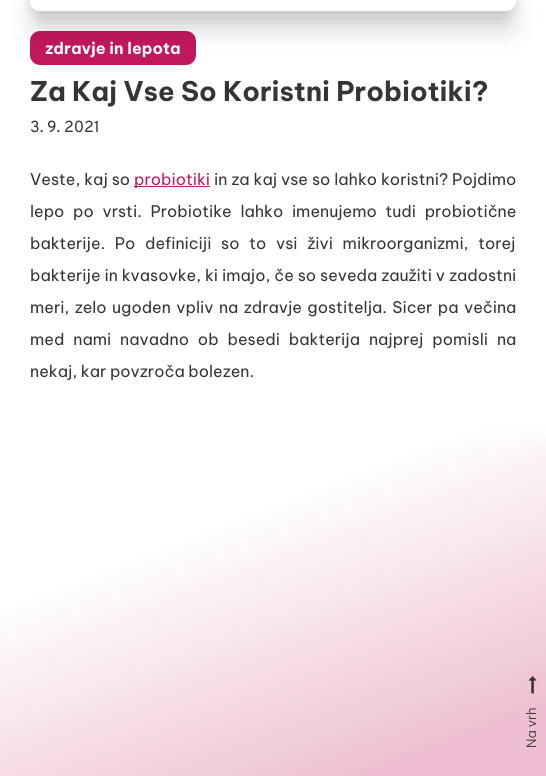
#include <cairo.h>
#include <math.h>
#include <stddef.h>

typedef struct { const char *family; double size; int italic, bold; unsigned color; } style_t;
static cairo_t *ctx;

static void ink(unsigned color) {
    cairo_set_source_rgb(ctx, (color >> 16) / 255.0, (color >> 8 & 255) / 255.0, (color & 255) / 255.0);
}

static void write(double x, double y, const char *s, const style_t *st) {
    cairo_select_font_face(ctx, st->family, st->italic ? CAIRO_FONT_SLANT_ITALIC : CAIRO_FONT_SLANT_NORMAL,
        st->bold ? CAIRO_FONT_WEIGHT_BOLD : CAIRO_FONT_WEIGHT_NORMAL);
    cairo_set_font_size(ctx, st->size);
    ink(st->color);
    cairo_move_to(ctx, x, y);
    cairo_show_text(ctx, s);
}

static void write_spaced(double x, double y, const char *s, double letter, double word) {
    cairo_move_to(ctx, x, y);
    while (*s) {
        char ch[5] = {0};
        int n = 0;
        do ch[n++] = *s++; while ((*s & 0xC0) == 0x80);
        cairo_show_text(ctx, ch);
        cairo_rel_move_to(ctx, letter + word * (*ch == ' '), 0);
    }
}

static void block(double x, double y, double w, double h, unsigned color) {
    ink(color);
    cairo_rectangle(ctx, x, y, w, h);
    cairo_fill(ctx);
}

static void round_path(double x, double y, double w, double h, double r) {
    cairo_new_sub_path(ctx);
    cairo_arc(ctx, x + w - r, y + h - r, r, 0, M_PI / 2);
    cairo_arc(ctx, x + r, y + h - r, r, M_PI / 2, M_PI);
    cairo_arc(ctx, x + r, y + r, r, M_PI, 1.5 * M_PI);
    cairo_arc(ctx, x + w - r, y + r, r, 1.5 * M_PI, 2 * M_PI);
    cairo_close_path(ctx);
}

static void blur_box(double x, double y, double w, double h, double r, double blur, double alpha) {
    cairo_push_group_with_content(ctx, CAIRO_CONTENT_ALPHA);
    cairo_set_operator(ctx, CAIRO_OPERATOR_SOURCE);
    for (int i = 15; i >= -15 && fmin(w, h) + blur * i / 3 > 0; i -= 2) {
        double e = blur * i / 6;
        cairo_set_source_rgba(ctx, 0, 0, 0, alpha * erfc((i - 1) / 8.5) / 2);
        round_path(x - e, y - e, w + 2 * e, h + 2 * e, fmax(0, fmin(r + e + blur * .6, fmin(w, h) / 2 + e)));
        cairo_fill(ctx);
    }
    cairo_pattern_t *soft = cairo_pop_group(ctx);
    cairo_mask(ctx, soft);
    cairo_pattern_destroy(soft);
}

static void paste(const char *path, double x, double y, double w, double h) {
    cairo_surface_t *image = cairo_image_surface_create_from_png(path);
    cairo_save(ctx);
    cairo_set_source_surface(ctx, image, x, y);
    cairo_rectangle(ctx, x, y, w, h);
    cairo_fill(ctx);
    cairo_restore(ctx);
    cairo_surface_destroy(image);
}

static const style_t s1 = {"Be Vietnam Pro", 16, 0, 1, 0xffffff};
static const style_t s2 = {"Be Vietnam Pro", 27, 0, 1, 0x353535};
static const style_t s3 = {"Overpass", 16, 0, 0, 0x353535};
static const style_t s4 = {"Be Vietnam Pro", 16, 0, 0, 0xc2185b};
static const style_t s5 = {"Be Vietnam Pro", 16, 0, 0, 0x353535};
static const style_t s6 = {"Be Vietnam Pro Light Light", 13, 0, 0, 0x353535};

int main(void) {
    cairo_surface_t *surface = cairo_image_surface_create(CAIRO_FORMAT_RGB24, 546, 776);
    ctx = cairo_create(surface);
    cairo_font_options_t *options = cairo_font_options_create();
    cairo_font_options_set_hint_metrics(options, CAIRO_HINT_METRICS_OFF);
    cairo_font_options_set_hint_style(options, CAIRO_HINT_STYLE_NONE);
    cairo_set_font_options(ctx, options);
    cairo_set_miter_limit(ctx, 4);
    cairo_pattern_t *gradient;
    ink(0xffffff);
    cairo_paint(ctx);
    ink(0xc2185b);
    round_path(30, 31, 166, 34, 10);
    cairo_fill(ctx);
    cairo_save(ctx);
    cairo_set_fill_rule(ctx, CAIRO_FILL_RULE_EVEN_ODD);
    cairo_new_path(ctx);
    cairo_move_to(ctx, 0, 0);
    cairo_line_to(ctx, 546, 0);
    cairo_line_to(ctx, 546, 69);
    cairo_line_to(ctx, 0, 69);
    cairo_close_path(ctx);
    cairo_move_to(ctx, 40, -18);
    cairo_line_to(ctx, 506, -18);
    cairo_curve_to(ctx, 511.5, -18, 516, -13.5, 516, -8);
    cairo_line_to(ctx, 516, 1);
    cairo_curve_to(ctx, 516, 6.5, 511.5, 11, 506, 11);
    cairo_line_to(ctx, 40, 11);
    cairo_curve_to(ctx, 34.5, 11, 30, 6.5, 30, 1);
    cairo_line_to(ctx, 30, -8);
    cairo_curve_to(ctx, 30, -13.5, 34.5, -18, 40, -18);
    cairo_close_path(ctx);
    cairo_clip(ctx);
    ink(0x070a19);
    blur_box(36, 10, 474, 17, 4, 13.5, 0.2);
    cairo_restore(ctx);
    cairo_save(ctx);
    cairo_set_fill_rule(ctx, CAIRO_FILL_RULE_EVEN_ODD);
    cairo_new_path(ctx);
    cairo_move_to(ctx, 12, 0);
    cairo_line_to(ctx, 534, 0);
    cairo_line_to(ctx, 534, 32);
    cairo_line_to(ctx, 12, 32);
    cairo_close_path(ctx);
    cairo_move_to(ctx, 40, -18);
    cairo_line_to(ctx, 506, -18);
    cairo_curve_to(ctx, 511.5, -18, 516, -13.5, 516, -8);
    cairo_line_to(ctx, 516, 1);
    cairo_curve_to(ctx, 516, 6.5, 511.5, 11, 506, 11);
    cairo_line_to(ctx, 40, 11);
    cairo_curve_to(ctx, 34.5, 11, 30, 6.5, 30, 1);
    cairo_line_to(ctx, 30, -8);
    cairo_curve_to(ctx, 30, -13.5, 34.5, -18, 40, -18);
    cairo_close_path(ctx);
    cairo_clip(ctx);
    ink(0x070a19);
    blur_box(31, -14, 484, 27, 9, 6, 0.2);
    cairo_restore(ctx);
    write(45, 54, "zdravje in lepota", &s1);
    write(30, 101, "Za Kaj Vse So Koristni Probiotiki?", &s2);
    write(30, 132, "3. 9. 2021", &s3);
    cairo_select_font_face(ctx, "Be Vietnam Pro", CAIRO_FONT_SLANT_NORMAL, CAIRO_FONT_WEIGHT_NORMAL);
    write_spaced(30, 185, "Veste, kaj so", 0, 0.25);
    block(134, 186, 76, 1, 0xc2185b);
    write(134, 185, "probiotiki", &s4);
    ink(0x353535);
    write_spaced(214, 185, "in za kaj vse so lahko koristni? Pojdimo", 0, 0.25);
    write_spaced(30, 217, "lepo po vrsti. Probiotike lahko imenujemo tudi probiotične", 0, 5);
    write_spaced(30, 249, "bakterije. Po definiciji so to vsi živi mikroorganizmi, torej", 0, 6);
    write_spaced(30, 281, "bakterije in kvasovke, ki imajo, če so seveda zaužiti v zadostni", 0, 0.25);
    write_spaced(30, 313, "meri, zelo ugoden vpliv na zdravje gostitelja. Sicer pa večina", 0, 1.75);
    write_spaced(30, 345, "med nami navadno ob besedi bakterija najprej pomisli na", 0, 5.25);
    write(30, 377, "nekaj, kar povzroča bolezen.", &s5);
    gradient = cairo_pattern_create_linear(473, 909, 73, -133);
    cairo_pattern_add_color_stop_rgba(gradient, 0.15, 0.98, 0.914, 0.937, 1);
    cairo_pattern_add_color_stop_rgba(gradient, 0.4, 1, 1, 1, 1);
    cairo_set_source(ctx, gradient);
    cairo_pattern_destroy(gradient);
    cairo_rectangle(ctx, 0, 437, 546, 339);
    cairo_fill(ctx);
    gradient = cairo_pattern_create_linear(473, 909, 73, -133);
    cairo_pattern_add_color_stop_rgba(gradient, 0.15, 0.761, 0.094, 0.357, 0.1);
    cairo_pattern_add_color_stop_rgba(gradient, 0.4, 1, 1, 1, 0.1);
    cairo_set_source(ctx, gradient);
    cairo_pattern_destroy(gradient);
    cairo_rectangle(ctx, 0, 429, 546, 347);
    cairo_fill(ctx);
    cairo_rectangle(ctx, 0, 442, 546, 334);
    cairo_fill(ctx);
    paste("pic1.png", 528, 676, 9, 18);
    cairo_save(ctx);
    cairo_translate(ctx, 536, 748);
    cairo_rotate(ctx, -90 * M_PI / 180);
    write(0, 0, "Na vrh", &s6);
    cairo_restore(ctx);
    cairo_surface_write_to_png(surface, "screenshot.png");
    cairo_font_options_destroy(options);
    cairo_destroy(ctx);
    cairo_surface_destroy(surface);
    return 0;
}
